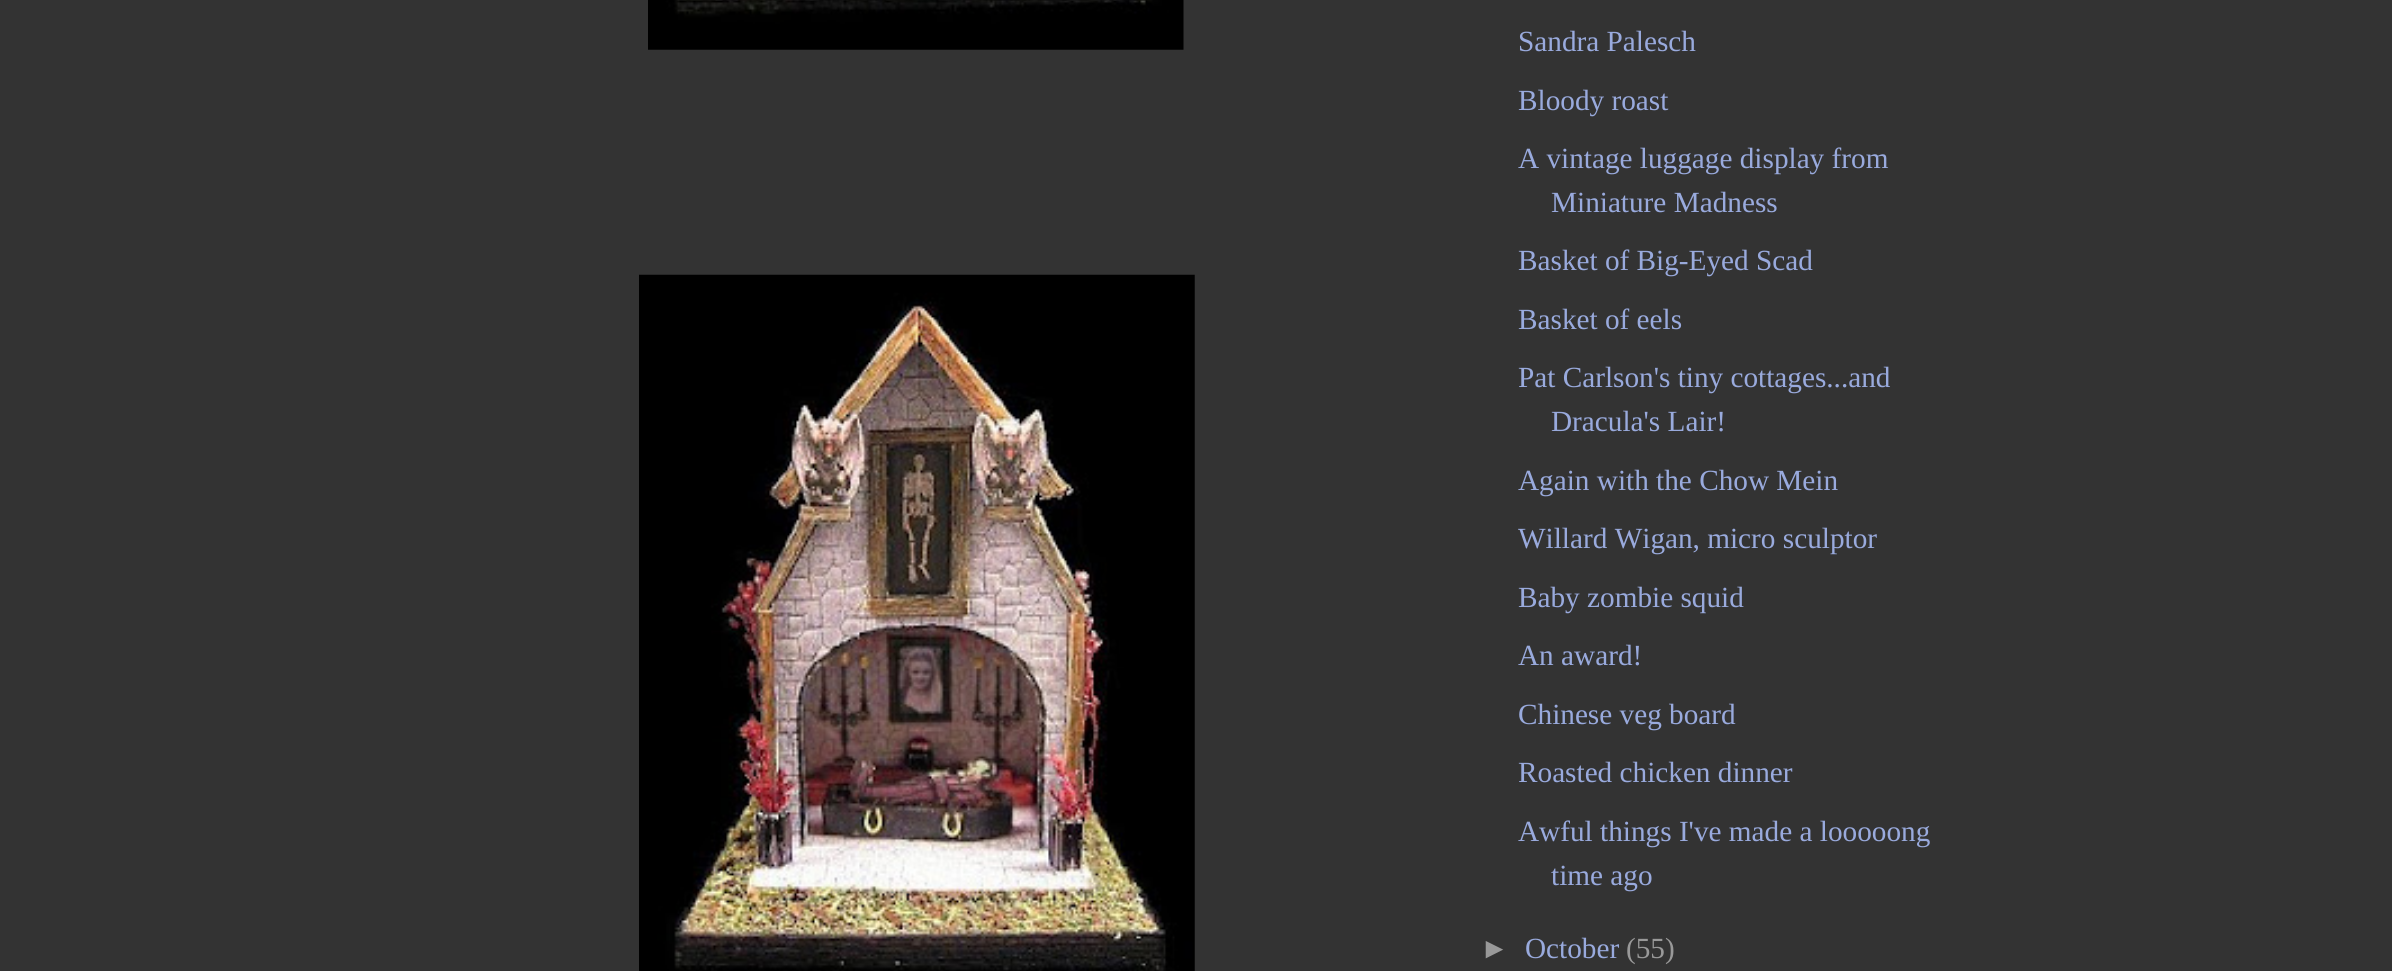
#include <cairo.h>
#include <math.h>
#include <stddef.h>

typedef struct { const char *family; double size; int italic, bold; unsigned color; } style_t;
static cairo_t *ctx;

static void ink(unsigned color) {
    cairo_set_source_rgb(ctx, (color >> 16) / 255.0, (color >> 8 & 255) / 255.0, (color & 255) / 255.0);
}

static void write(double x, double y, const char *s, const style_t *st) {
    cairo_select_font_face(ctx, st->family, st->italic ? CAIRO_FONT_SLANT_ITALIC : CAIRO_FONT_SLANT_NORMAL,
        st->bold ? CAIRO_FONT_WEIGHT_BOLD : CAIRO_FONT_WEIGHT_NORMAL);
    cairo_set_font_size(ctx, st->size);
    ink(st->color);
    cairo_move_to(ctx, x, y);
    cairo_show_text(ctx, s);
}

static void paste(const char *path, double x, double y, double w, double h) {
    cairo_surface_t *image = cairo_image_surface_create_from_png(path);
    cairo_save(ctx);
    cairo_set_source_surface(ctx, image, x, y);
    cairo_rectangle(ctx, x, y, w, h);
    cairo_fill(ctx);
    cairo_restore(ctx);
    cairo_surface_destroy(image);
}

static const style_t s1 = {"Liberation Serif", 29.25, 0, 0, 0x99aadd};
static const style_t s2 = {"Liberation Sans", 29.25, 0, 0, 0x999999};
static const style_t s3 = {"Liberation Serif", 29.25, 0, 0, 0x999999};

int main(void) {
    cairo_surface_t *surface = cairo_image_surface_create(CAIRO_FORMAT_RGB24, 2392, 971);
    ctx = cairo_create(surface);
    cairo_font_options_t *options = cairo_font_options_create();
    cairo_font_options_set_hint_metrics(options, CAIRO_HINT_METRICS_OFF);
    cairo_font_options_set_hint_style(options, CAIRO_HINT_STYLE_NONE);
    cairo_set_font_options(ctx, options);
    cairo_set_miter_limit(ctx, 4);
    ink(0x333333);
    cairo_paint(ctx);
    paste("pic1.png", 648, 0, 536, 50);
    paste("pic2.png", 639, 274, 556, 697);
    write(1518, 51, "Sandra Palesch", &s1);
    write(1518, 110, "Bloody roast", &s1);
    write(1518, 168, "A vintage luggage display from", &s1);
    write(1551, 212, "Miniature Madness", &s1);
    write(1518, 270, "Basket of Big-Eyed Scad", &s1);
    write(1518, 329, "Basket of eels", &s1);
    write(1518, 387, "Pat Carlson's tiny cottages...and", &s1);
    write(1551, 431, "Dracula's Lair!", &s1);
    write(1518, 490, "Again with the Chow Mein", &s1);
    write(1518, 548, "Willard Wigan, micro sculptor", &s1);
    write(1518, 607, "Baby zombie squid", &s1);
    write(1518, 665, "An award!", &s1);
    write(1518, 724, "Chinese veg board", &s1);
    write(1518, 782, "Roasted chicken dinner", &s1);
    write(1518, 841, "Awful things I've made a looooong", &s1);
    write(1551, 885, "time ago", &s1);
    write(1480, 958, "►", &s2);
    write(1525, 958, "October", &s1);
    write(1626, 958, "(55)", &s3);
    cairo_surface_write_to_png(surface, "screenshot.png");
    cairo_font_options_destroy(options);
    cairo_destroy(ctx);
    cairo_surface_destroy(surface);
    return 0;
}
